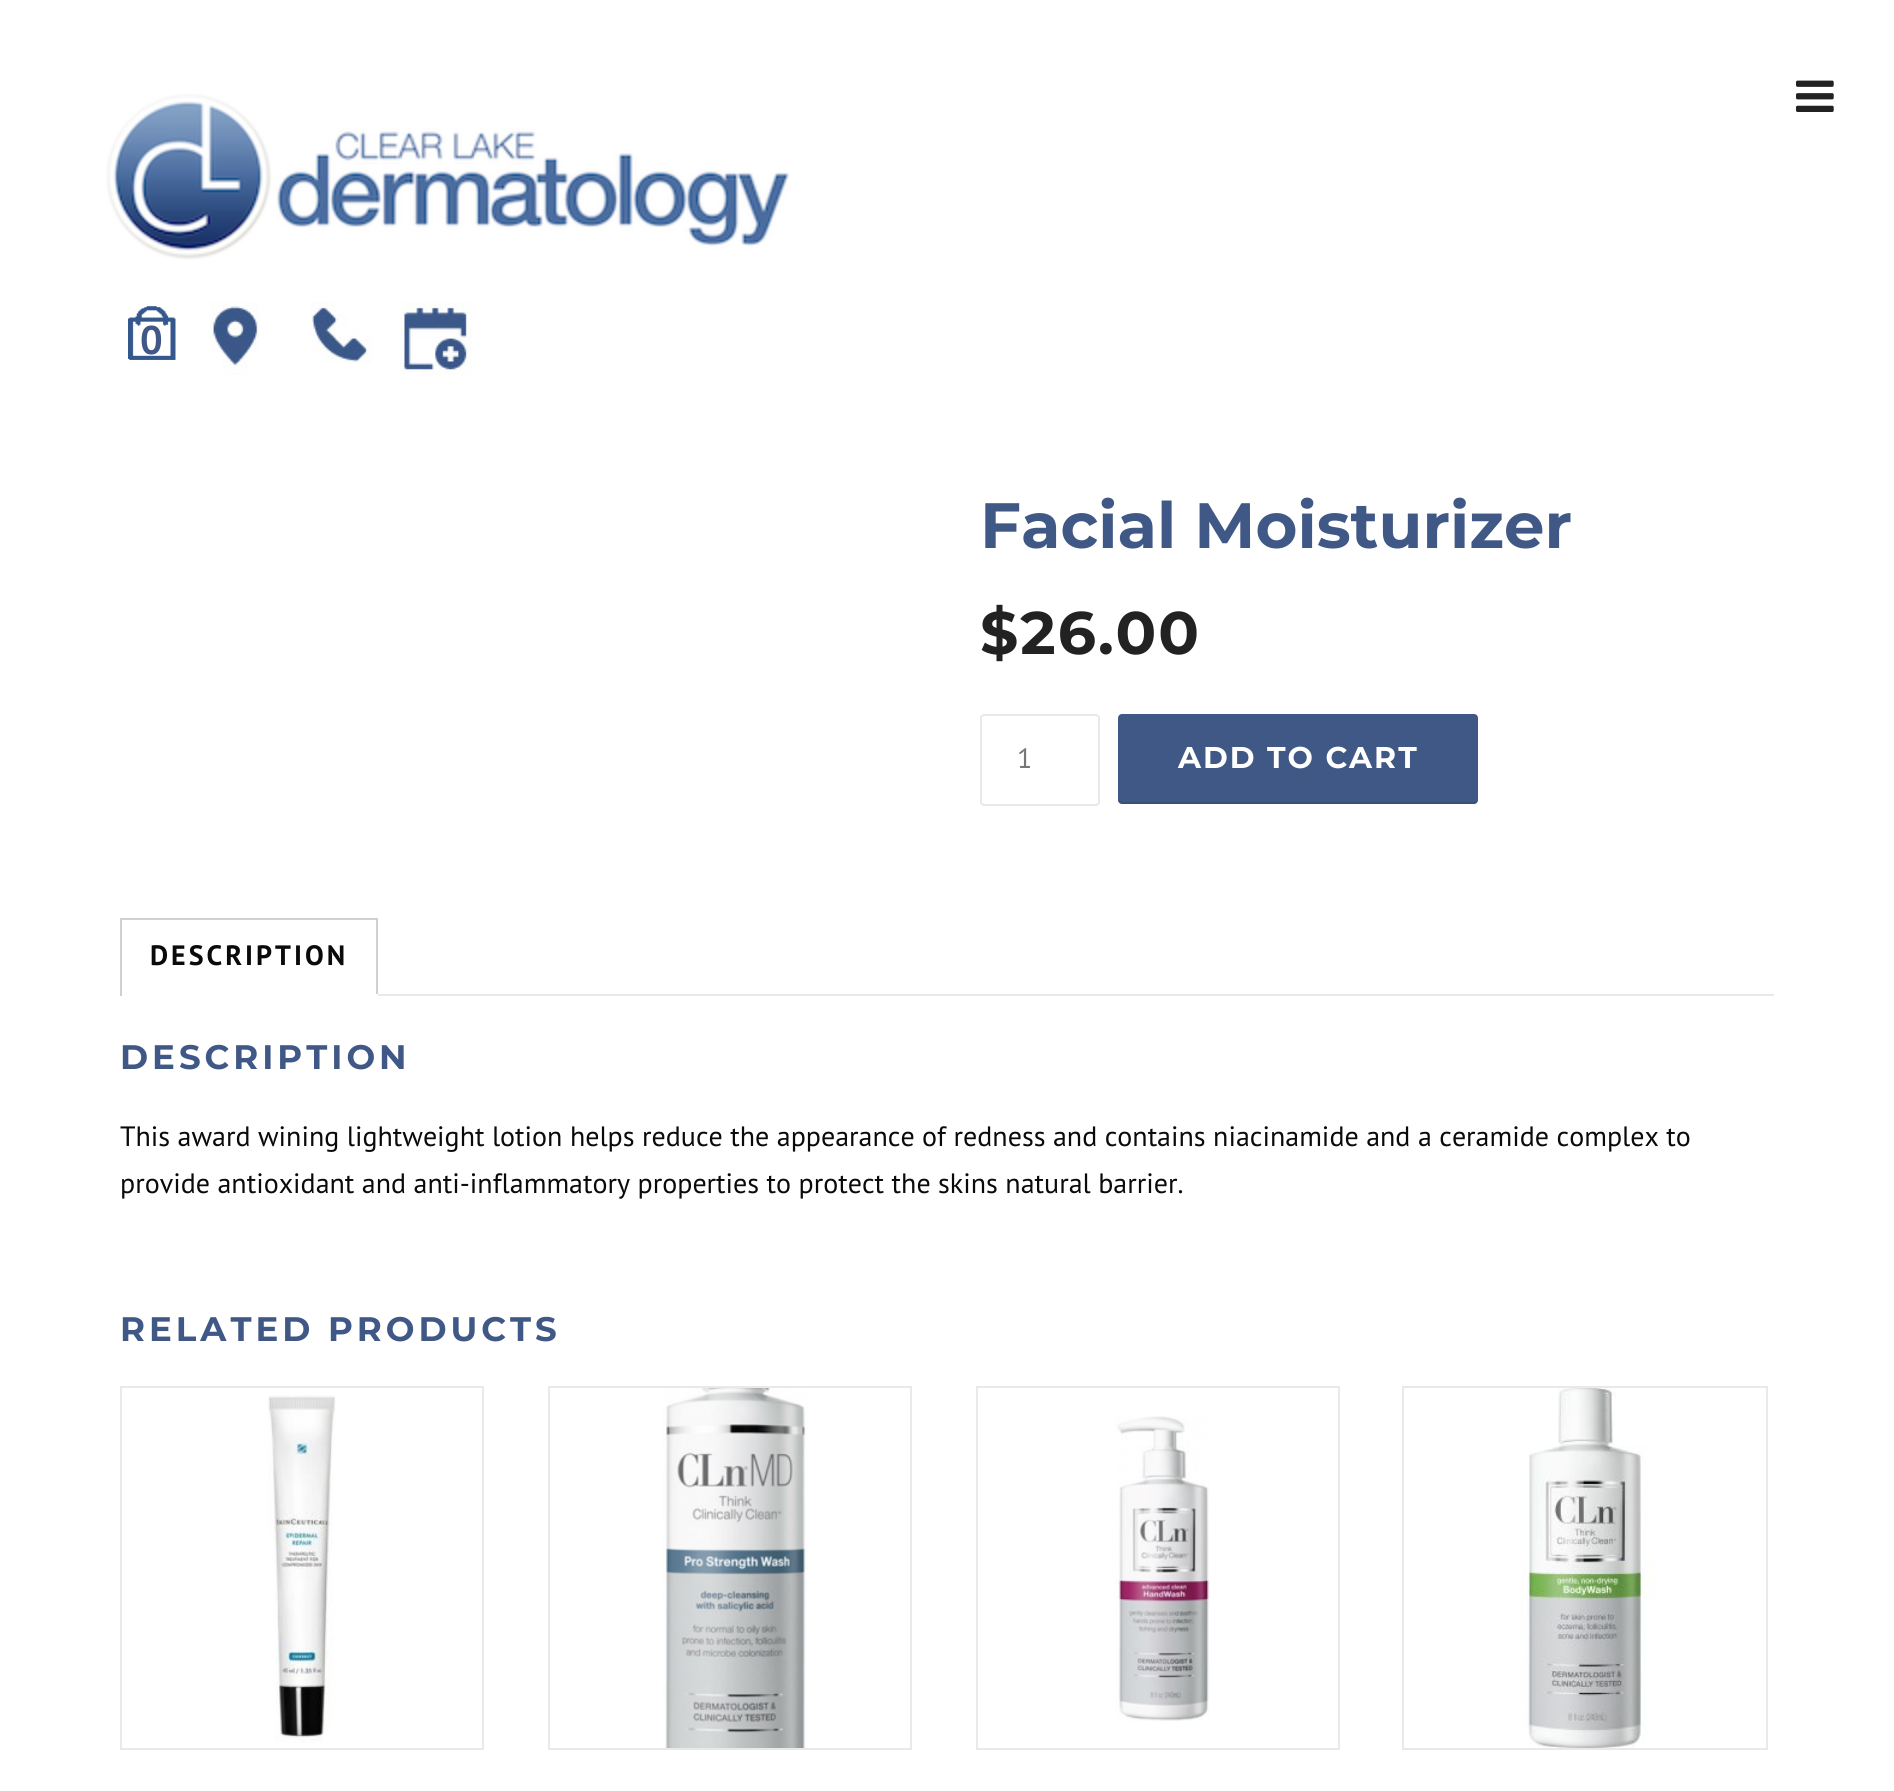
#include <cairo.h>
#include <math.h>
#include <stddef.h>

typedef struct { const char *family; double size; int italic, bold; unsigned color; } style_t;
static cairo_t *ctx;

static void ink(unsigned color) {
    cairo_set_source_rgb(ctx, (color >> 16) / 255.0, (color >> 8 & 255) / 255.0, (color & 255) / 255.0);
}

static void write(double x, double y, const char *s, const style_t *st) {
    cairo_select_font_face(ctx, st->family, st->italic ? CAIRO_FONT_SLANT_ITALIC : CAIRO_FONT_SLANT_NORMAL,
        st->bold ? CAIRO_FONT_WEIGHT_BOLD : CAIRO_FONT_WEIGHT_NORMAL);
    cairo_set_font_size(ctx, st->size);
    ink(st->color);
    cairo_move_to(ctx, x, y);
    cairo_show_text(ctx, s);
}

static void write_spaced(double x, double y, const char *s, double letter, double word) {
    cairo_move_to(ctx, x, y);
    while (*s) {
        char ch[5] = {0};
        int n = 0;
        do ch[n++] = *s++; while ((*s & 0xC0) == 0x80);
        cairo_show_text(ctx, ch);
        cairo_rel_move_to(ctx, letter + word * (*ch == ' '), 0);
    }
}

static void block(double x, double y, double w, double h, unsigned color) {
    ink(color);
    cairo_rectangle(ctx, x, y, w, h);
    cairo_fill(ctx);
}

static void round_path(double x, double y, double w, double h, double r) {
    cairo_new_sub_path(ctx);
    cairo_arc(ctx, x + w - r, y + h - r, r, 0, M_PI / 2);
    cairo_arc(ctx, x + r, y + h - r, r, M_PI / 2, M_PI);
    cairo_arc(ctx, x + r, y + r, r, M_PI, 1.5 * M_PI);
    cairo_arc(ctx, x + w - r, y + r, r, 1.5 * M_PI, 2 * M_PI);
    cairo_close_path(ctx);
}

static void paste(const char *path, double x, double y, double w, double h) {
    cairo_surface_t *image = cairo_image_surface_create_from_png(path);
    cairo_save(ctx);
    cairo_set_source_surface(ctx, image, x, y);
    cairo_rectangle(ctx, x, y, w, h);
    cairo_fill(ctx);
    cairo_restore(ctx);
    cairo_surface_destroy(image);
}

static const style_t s1 = {"PT Sans", 40, 0, 1, 0x405885};
static const style_t s2 = {"Montserrat", 64, 0, 1, 0x405885};
static const style_t s3 = {"PT Sans", 28, 0, 0, 0x777777};
static const style_t s4 = {"PT Sans", 28, 0, 0, 0x0a0a0a};

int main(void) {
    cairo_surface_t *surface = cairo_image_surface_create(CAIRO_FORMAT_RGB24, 1894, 1791);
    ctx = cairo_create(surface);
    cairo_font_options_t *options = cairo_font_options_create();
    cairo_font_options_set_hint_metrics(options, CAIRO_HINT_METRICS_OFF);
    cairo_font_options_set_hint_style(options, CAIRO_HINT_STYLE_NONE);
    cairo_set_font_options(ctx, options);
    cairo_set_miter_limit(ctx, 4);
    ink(0xffffff);
    cairo_paint(ctx);
    paste("pic1.png", 106, 94, 683, 166);
    paste("pic2.png", 1796, 80, 38, 32);
    paste("pic3.png", 128, 306, 48, 54);
    write(140, 354, "0", &s1);
    paste("pic4.png", 211, 302, 49, 73);
    paste("pic5.png", 311, 302, 61, 61);
    paste("pic6.png", 400, 302, 72, 73);
    write(980, 548, "Facial Moisturizer", &s2);
    cairo_set_font_size(ctx, 60);
    ink(0x222222);
    write_spaced(980, 654, "$26.00", 2, 0);
    round_path(981, 715, 118, 90, 3);
    ink(0xe9e9e9);
    cairo_stroke(ctx);
    write(1017, 768, "1", &s3);
    ink(0x405885);
    round_path(1118, 714, 360, 90, 4);
    cairo_fill(ctx);
    cairo_set_source_rgba(ctx, 0, 0, 0, 0.1);
    cairo_new_path(ctx);
    cairo_move_to(ctx, 1118, 798);
    cairo_line_to(ctx, 1118, 800);
    cairo_curve_to(ctx, 1118, 802, 1120, 804, 1122, 804);
    cairo_line_to(ctx, 1474, 804);
    cairo_curve_to(ctx, 1476, 804, 1478, 802, 1478, 800);
    cairo_line_to(ctx, 1478, 798);
    cairo_curve_to(ctx, 1478, 800, 1476, 802, 1474, 802);
    cairo_line_to(ctx, 1122, 802);
    cairo_curve_to(ctx, 1120, 802, 1118, 800, 1118, 798);
    cairo_close_path(ctx);
    cairo_fill(ctx);
    cairo_select_font_face(ctx, "Montserrat", CAIRO_FONT_SLANT_NORMAL, CAIRO_FONT_WEIGHT_BOLD);
    cairo_set_font_size(ctx, 30);
    ink(0xffffff);
    write_spaced(1178, 768, "ADD TO CART", 2, 0);
    block(120, 918, 258, 2, 0xd3ced2);
    block(376, 918, 2, 78, 0xd3ced2);
    block(376, 994, 2, 2, 0xffffff);
    block(120, 918, 2, 78, 0xd3ced2);
    cairo_select_font_face(ctx, "PT Sans", CAIRO_FONT_SLANT_NORMAL, CAIRO_FONT_WEIGHT_BOLD);
    cairo_set_font_size(ctx, 28);
    ink(0x0a0a0a);
    write_spaced(150, 965, "DESCRIPTION", 3, 0);
    block(378, 994, 1396, 2, 0xe9e9e9);
    cairo_select_font_face(ctx, "Montserrat", CAIRO_FONT_SLANT_NORMAL, CAIRO_FONT_WEIGHT_BOLD);
    cairo_set_font_size(ctx, 34);
    ink(0x405885);
    write_spaced(120, 1069, "DESCRIPTION", 4, 0);
    write(120, 1146, "This award wining lightweight lotion helps reduce the appearance of redness and contains niacinamide and a ceramide complex to", &s4);
    write(120, 1193, "provide antioxidant and anti-inflammatory properties to protect the skins natural barrier.", &s4);
    cairo_select_font_face(ctx, "Montserrat", CAIRO_FONT_SLANT_NORMAL, CAIRO_FONT_WEIGHT_BOLD);
    cairo_set_font_size(ctx, 34);
    ink(0x405885);
    write_spaced(120, 1341, "RELATED PRODUCTS", 4, 0);
    cairo_rectangle(ctx, 121, 1387, 362, 362);
    ink(0xe9e9e9);
    cairo_stroke(ctx);
    paste("pic7.png", 268, 1395, 68, 348);
    cairo_rectangle(ctx, 549, 1387, 362, 362);
    cairo_stroke(ctx);
    paste("pic8.png", 663, 1388, 145, 360);
    cairo_rectangle(ctx, 977, 1387, 362, 362);
    cairo_stroke(ctx);
    paste("pic9.png", 1115, 1416, 95, 305);
    cairo_rectangle(ctx, 1403, 1387, 364, 362);
    cairo_stroke(ctx);
    paste("pic10.png", 1521, 1388, 134, 360);
    cairo_surface_write_to_png(surface, "screenshot.png");
    cairo_font_options_destroy(options);
    cairo_destroy(ctx);
    cairo_surface_destroy(surface);
    return 0;
}
